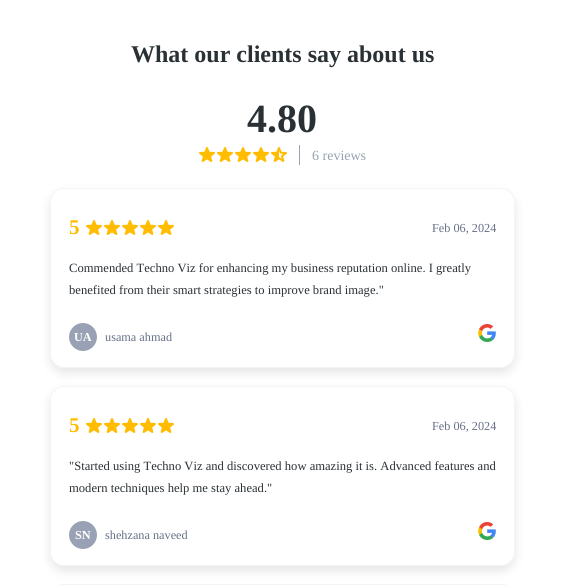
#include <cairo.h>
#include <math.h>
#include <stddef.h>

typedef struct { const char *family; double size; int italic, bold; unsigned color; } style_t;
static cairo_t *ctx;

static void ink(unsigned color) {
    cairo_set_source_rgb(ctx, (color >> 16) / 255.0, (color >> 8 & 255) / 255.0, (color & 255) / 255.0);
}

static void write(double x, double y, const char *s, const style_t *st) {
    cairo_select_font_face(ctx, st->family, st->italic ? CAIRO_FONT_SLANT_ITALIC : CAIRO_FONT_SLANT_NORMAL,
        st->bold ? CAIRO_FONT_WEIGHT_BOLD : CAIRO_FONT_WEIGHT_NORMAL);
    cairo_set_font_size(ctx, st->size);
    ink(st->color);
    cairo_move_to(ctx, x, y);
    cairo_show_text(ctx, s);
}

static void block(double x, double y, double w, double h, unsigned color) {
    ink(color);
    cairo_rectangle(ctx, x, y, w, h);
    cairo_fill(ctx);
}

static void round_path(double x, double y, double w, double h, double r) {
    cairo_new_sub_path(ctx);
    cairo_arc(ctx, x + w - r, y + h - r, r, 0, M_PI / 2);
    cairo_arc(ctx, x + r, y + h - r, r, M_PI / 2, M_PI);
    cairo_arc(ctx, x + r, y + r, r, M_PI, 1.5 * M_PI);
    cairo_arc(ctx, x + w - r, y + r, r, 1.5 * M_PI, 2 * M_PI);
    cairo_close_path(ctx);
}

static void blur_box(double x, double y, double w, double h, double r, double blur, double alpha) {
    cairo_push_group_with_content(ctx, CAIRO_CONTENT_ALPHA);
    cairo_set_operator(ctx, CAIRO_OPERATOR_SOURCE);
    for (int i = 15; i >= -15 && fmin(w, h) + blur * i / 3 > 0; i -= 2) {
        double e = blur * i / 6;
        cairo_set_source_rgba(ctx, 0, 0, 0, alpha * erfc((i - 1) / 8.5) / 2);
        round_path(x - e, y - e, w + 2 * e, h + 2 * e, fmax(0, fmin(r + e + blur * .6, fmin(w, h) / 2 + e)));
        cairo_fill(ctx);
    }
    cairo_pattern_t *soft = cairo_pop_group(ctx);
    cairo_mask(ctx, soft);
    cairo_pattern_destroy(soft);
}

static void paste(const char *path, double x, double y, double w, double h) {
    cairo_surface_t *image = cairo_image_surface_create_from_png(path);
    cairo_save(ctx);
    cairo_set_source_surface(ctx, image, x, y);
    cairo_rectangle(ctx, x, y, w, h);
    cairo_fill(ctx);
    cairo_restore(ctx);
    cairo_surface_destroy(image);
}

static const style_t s1 = {"Liberation Serif", 24, 0, 1, 0x2a3135};
static const style_t s2 = {"Liberation Serif", 40, 0, 1, 0x2a3135};
static const style_t s3 = {"Liberation Serif", 14, 0, 0, 0x98a2b3};
static const style_t s4 = {"Liberation Serif", 21, 0, 1, 0xffbc00};
static const style_t s5 = {"Liberation Serif", 12.25, 0, 0, 0x667085};
static const style_t s6 = {"Liberation Serif", 12.6, 0, 0, 0x2a3135};
static const style_t s7 = {"Liberation Serif", 12.25, 0, 1, 0xffffff};

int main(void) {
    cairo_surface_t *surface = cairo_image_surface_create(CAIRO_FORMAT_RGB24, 565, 586);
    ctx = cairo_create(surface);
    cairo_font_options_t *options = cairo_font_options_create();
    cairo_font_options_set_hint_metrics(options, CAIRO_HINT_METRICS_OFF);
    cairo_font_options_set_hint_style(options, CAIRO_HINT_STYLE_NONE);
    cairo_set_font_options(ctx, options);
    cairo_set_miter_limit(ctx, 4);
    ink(0xffffff);
    cairo_paint(ctx);
    write(131, 62, "What our clients say about us", &s1);
    write(247, 132, "4.80", &s2);
    paste("pic1.png", 199, 147, 16, 15);
    paste("pic1.png", 217, 147, 16, 15);
    paste("pic1.png", 235, 147, 16, 15);
    paste("pic1.png", 253, 147, 16, 15);
    paste("pic2.png", 271, 147, 16, 15);
    block(299, 145, 1, 20, 0x98a2b3);
    write(312, 160, "6 reviews", &s3);
    ink(0x000000);
    blur_box(50, 193, 465, 180, 14, 5, 0.1);
    ink(0xffffff);
    round_path(50.5, 188.5, 464, 179, 13.5);
    cairo_fill_preserve(ctx);
    ink(0xf2f4f7);
    cairo_set_line_width(ctx, 1);
    cairo_stroke(ctx);
    write(69, 234, "5", &s4);
    paste("pic1.png", 86, 220, 16, 15);
    paste("pic1.png", 104, 220, 16, 15);
    paste("pic1.png", 122, 220, 16, 15);
    paste("pic1.png", 140, 220, 16, 15);
    paste("pic1.png", 158, 220, 16, 15);
    write(432, 232, "Feb 06, 2024", &s5);
    write(69, 272, "Commended Techno Viz for enhancing my business reputation online. I greatly", &s6);
    write(69, 294, "benefited from their smart strategies to improve brand image.\"", &s6);
    ink(0x99a2b4);
    cairo_new_path(ctx);
    cairo_arc(ctx, 83, 337, 14, 0, 2 * M_PI);
    cairo_fill(ctx);
    write(74, 341, "UA", &s7);
    write(105, 341, "usama ahmad", &s5);
    paste("pic3.png", 478, 324, 18, 18);
    ink(0x000000);
    blur_box(50, 391, 465, 180, 14, 5, 0.1);
    ink(0xffffff);
    round_path(50.5, 386.5, 464, 179, 13.5);
    cairo_fill_preserve(ctx);
    ink(0xf2f4f7);
    cairo_stroke(ctx);
    write(69, 432, "5", &s4);
    paste("pic1.png", 86, 418, 16, 15);
    paste("pic1.png", 104, 418, 16, 15);
    paste("pic1.png", 122, 418, 16, 15);
    paste("pic1.png", 140, 418, 16, 15);
    paste("pic1.png", 158, 418, 16, 15);
    write(432, 430, "Feb 06, 2024", &s5);
    write(69, 470, "\"Started using Techno Viz and discovered how amazing it is. Advanced features and", &s6);
    write(69, 492, "modern techniques help me stay ahead.\"", &s6);
    ink(0x99a2b4);
    cairo_new_path(ctx);
    cairo_arc(ctx, 83, 535, 14, 0, 2 * M_PI);
    cairo_fill(ctx);
    write(75, 539, "SN", &s7);
    write(105, 539, "shehzana naveed", &s5);
    paste("pic3.png", 478, 522, 18, 18);
    round_path(50.5, 584.5, 464, 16, 13.5);
    ink(0xf2f4f7);
    cairo_stroke(ctx);
    cairo_surface_write_to_png(surface, "screenshot.png");
    cairo_font_options_destroy(options);
    cairo_destroy(ctx);
    cairo_surface_destroy(surface);
    return 0;
}
